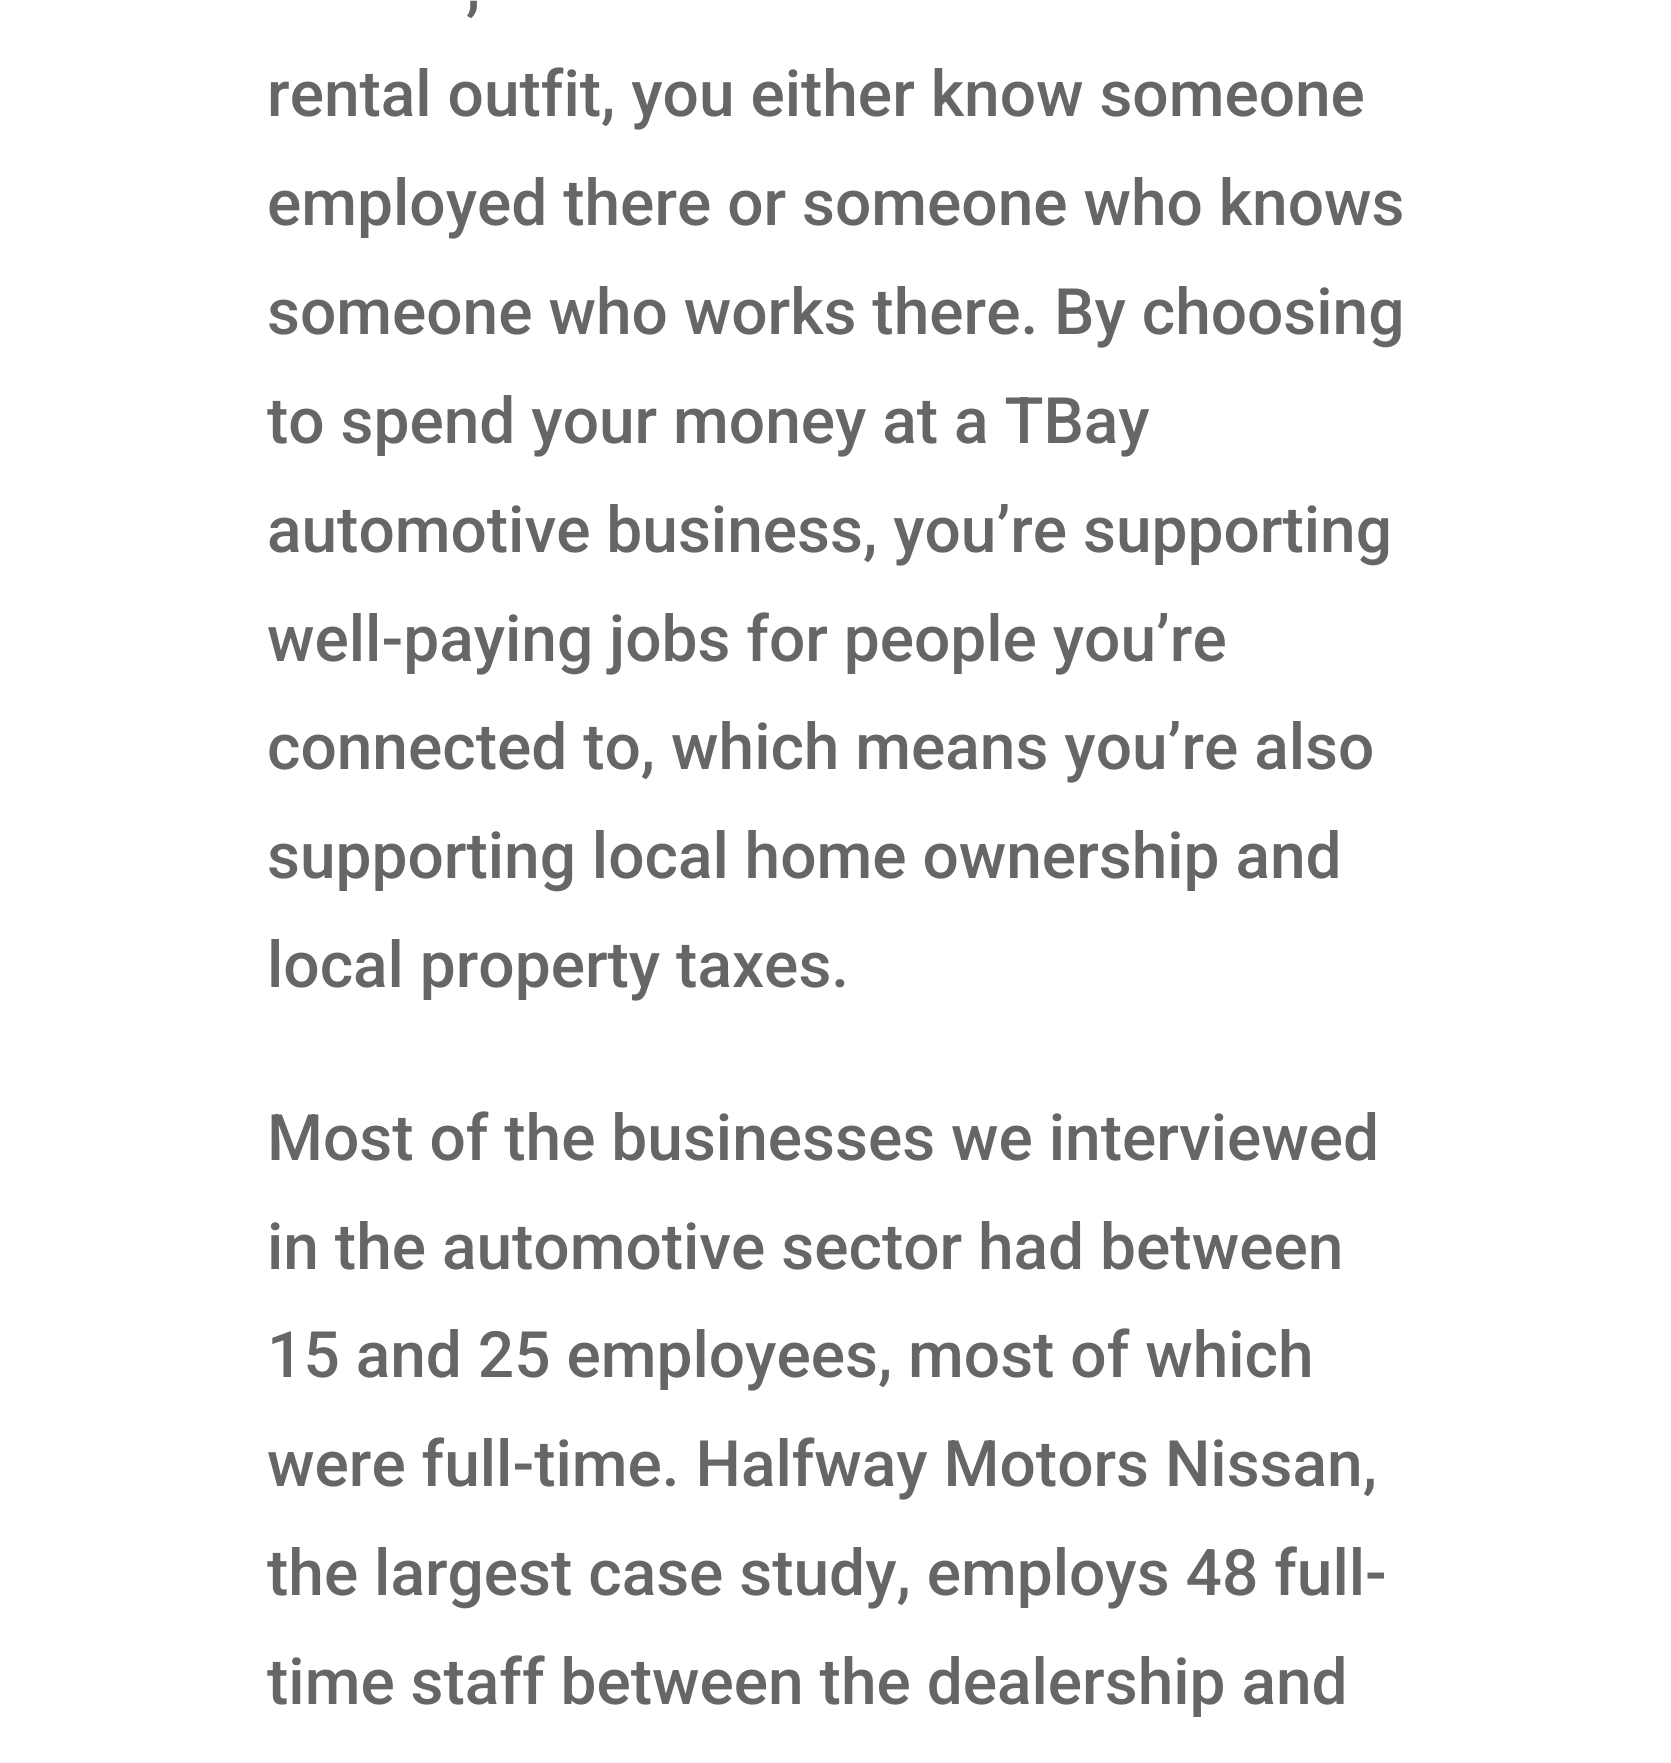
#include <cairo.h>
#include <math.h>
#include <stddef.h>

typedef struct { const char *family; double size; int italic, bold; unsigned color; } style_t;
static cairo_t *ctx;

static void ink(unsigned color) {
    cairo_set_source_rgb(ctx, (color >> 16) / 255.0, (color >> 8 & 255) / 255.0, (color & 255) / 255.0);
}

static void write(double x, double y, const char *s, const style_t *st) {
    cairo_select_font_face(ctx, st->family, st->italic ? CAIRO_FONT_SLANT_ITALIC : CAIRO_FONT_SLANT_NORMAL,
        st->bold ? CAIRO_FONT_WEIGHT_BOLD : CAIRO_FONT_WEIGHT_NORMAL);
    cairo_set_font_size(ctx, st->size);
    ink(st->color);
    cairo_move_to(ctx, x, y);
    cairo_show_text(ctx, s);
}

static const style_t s1 = {"Roboto Medium", 64, 0, 0, 0x666666};

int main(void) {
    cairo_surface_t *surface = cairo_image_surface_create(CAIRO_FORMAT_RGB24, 1671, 1763);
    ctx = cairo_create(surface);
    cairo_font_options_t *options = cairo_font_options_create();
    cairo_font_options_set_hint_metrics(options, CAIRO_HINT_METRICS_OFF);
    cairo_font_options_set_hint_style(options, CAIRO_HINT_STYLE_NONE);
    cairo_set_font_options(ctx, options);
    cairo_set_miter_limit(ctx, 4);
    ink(0xffffff);
    cairo_paint(ctx);
    write(466, 8, ",", &s1);
    write(267, 116, "rental outfit, you either know someone", &s1);
    write(267, 225, "employed there or someone who knows", &s1);
    write(267, 334, "someone who works there. By choosing", &s1);
    write(267, 443, "to spend your money at a TBay", &s1);
    write(267, 552, "automotive business, you’re supporting", &s1);
    write(267, 661, "well-paying jobs for people you’re", &s1);
    write(267, 769, "connected to, which means you’re also", &s1);
    write(267, 878, "supporting local home ownership and", &s1);
    write(267, 987, "local property taxes.", &s1);
    write(267, 1160, "Most of the businesses we interviewed", &s1);
    write(267, 1269, "in the automotive sector had between", &s1);
    write(267, 1377, "15 and 25 employees, most of which", &s1);
    write(267, 1486, "were full-time. Halfway Motors Nissan,", &s1);
    write(267, 1595, "the largest case study, employs 48 full-", &s1);
    write(267, 1704, "time staff between the dealership and", &s1);
    cairo_surface_write_to_png(surface, "screenshot.png");
    cairo_font_options_destroy(options);
    cairo_destroy(ctx);
    cairo_surface_destroy(surface);
    return 0;
}
